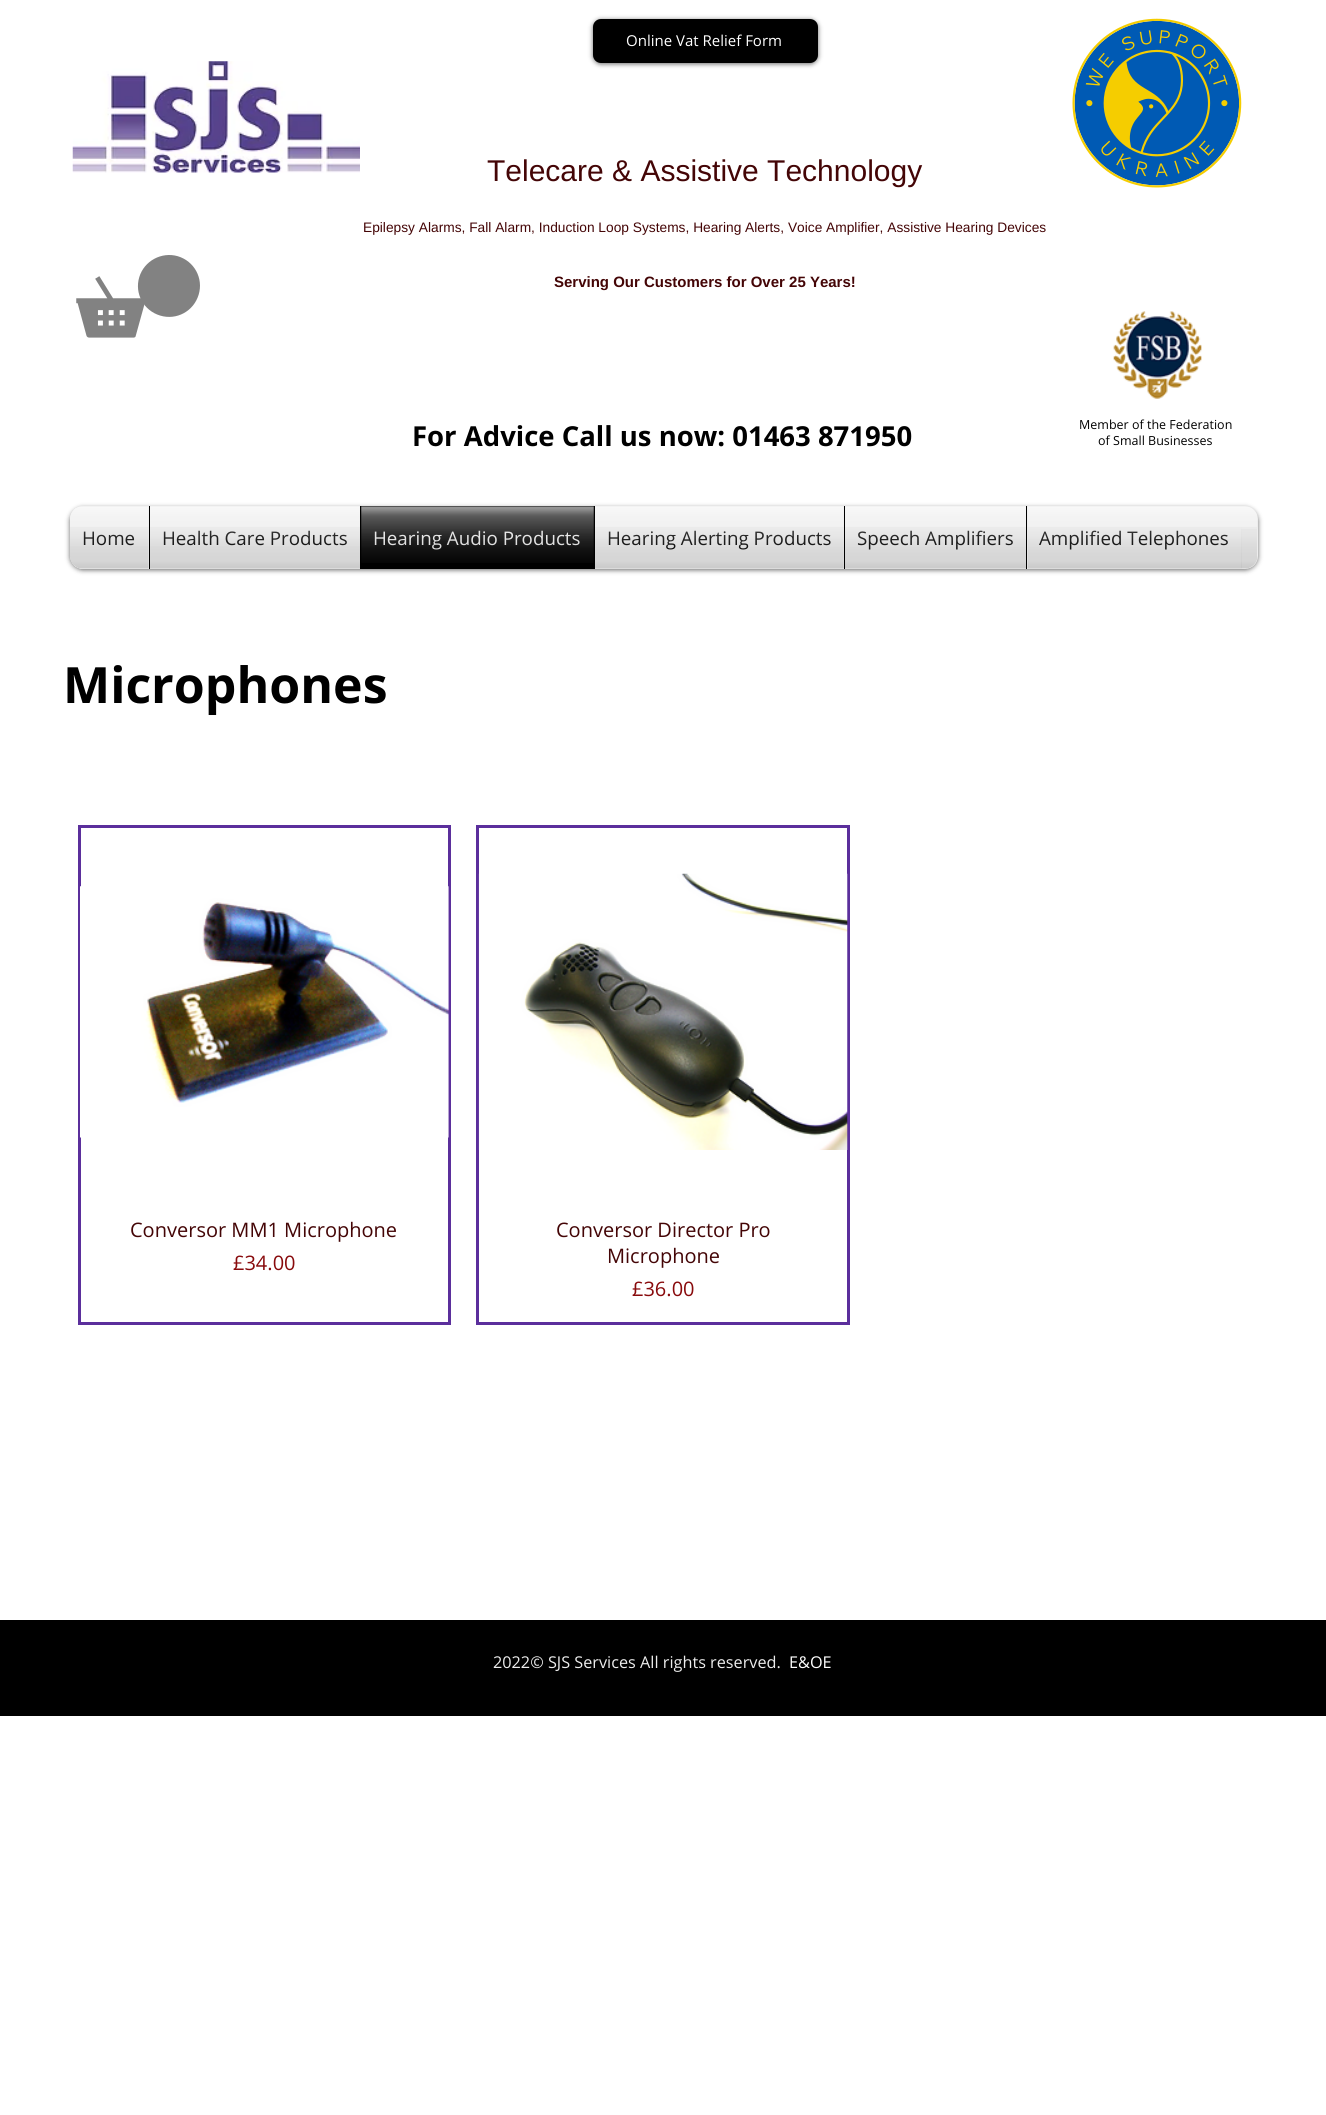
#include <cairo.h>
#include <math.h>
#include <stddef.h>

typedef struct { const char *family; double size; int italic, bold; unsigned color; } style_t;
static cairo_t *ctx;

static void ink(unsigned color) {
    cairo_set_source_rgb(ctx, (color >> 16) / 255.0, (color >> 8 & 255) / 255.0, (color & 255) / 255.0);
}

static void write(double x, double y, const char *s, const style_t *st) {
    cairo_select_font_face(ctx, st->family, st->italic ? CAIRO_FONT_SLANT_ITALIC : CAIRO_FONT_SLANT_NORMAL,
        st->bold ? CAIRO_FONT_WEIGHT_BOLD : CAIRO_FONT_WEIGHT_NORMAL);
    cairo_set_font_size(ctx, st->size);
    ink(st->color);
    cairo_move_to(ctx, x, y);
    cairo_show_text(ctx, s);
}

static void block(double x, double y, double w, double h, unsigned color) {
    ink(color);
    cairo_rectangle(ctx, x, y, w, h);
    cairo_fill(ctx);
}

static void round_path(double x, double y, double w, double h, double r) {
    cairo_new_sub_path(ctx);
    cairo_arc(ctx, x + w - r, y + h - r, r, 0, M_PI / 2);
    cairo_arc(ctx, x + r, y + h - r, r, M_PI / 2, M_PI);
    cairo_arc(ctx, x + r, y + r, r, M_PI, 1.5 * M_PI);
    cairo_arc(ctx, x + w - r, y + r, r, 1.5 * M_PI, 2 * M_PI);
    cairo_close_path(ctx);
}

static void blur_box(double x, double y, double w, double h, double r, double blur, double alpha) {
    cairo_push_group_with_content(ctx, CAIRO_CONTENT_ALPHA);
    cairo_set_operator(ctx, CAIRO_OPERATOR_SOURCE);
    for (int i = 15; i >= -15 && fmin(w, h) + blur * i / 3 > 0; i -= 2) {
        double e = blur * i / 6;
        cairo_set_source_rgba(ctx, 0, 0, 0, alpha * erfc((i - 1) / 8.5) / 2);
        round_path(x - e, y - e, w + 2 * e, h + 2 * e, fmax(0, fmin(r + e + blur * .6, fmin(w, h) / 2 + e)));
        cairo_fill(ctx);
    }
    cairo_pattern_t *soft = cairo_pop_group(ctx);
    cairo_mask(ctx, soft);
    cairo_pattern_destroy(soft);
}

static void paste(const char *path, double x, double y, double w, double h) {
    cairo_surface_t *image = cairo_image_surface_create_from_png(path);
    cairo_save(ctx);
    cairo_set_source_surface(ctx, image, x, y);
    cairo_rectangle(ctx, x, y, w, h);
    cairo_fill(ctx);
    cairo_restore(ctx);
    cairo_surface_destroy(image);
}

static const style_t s1 = {"Open Sans", 15, 0, 0, 0xffffff};
static const style_t s2 = {"Liberation Sans", 30, 0, 0, 0x440506};
static const style_t s3 = {"Liberation Sans", 13.75, 0, 0, 0x440506};
static const style_t s4 = {"Liberation Sans", 15, 0, 1, 0x440506};
static const style_t s5 = {"Open Sans", 27.5, 0, 1, 0x000000};
static const style_t s6 = {"Open Sans", 12.5, 0, 0, 0x000000};
static const style_t s7 = {"Open Sans", 18.75, 0, 0, 0x000000};
static const style_t s8 = {"Open Sans", 18.75, 0, 0, 0xededed};
static const style_t s9 = {"Open Sans", 50, 0, 1, 0x000000};
static const style_t s10 = {"Open Sans", 20, 0, 0, 0x440506};
static const style_t s11 = {"Open Sans", 20, 0, 0, 0x880a0c};
static const style_t s12 = {"Open Sans", 16.25, 0, 0, 0xededed};
static const style_t s13 = {"Open Sans", 16.25, 0, 0, 0xffffff};

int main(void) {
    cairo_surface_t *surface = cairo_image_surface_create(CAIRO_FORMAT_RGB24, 1326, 2115);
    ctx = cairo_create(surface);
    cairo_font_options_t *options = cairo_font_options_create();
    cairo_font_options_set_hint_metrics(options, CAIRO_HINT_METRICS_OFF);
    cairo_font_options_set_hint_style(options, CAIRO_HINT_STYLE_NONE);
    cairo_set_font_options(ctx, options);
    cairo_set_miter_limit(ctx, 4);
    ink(0xffffff);
    cairo_paint(ctx);
    ink(0x000000);
    blur_box(593, 20, 225, 44, 8, 2.5, 0.6);
    ink(0x000000);
    round_path(593, 19, 225, 44, 8);
    cairo_fill(ctx);
    write(626, 46, "Online Vat Relief Form", &s1);
    paste("pic1.png", 1072, 18, 170, 170);
    paste("pic2.png", 72, 61, 288, 112);
    paste("pic3.png", 76, 255, 124, 83);
    write(487, 181, "Telecare & Assistive Technology", &s2);
    write(363, 232, "Epilepsy Alarms, Fall Alarm, Induction Loop Systems, Hearing Alerts, Voice Amplifier, Assistive Hearing Devices", &s3);
    write(554, 287, "Serving Our Customers for Over 25 Years!", &s4);
    paste("pic4.png", 1113, 311, 89, 88);
    write(412, 446, "For Advice Call us now: 01463 871950", &s5);
    write(1079, 429, "Member of the Federation", &s6);
    write(1098, 445, "of Small Businesses", &s6);
    ink(0x000000);
    blur_box(70, 508, 1188, 62, 13, 2.5, 0.6);
    ink(0xededed);
    round_path(70, 506, 1188, 63, 13);
    cairo_fill(ctx);
    paste("pic5.png", 70, 506, 1187, 23);
    paste("pic6.png", 70, 527, 1187, 42);
    cairo_new_path(ctx);
    cairo_move_to(ctx, 83, 506);
    cairo_line_to(ctx, 149, 506);
    cairo_line_to(ctx, 149, 569);
    cairo_line_to(ctx, 83, 569);
    cairo_curve_to(ctx, 76, 569, 70, 563, 70, 556);
    cairo_line_to(ctx, 70, 519);
    cairo_curve_to(ctx, 70, 512, 76, 506, 83, 506);
    cairo_close_path(ctx);
    cairo_fill(ctx);
    write(82, 545, "Home", &s7);
    paste("pic7.png", 70, 506, 79, 40);
    paste("pic8.png", 70, 527, 79, 42);
    block(150, 506, 210, 63, 0xededed);
    block(149, 506, 1, 63, 0x000000);
    write(162, 545, "Health Care Products", &s7);
    paste("pic9.png", 150, 506, 210, 40);
    paste("pic10.png", 150, 527, 210, 42);
    block(360, 506, 235, 63, 0x000000);
    write(373, 545, "Hearing Audio Products", &s8);
    paste("pic11.png", 361, 506, 233, 57);
    paste("pic12.png", 375, 531, 205, 19);
    block(595, 506, 249, 63, 0xededed);
    write(607, 545, "Hearing Alerting Products", &s7);
    paste("pic13.png", 595, 506, 249, 44);
    paste("pic14.png", 595, 527, 249, 42);
    block(845, 506, 181, 63, 0xededed);
    block(844, 506, 1, 63, 0x000000);
    write(857, 545, "Speech Amplifiers", &s7);
    paste("pic15.png", 845, 506, 181, 44);
    paste("pic16.png", 845, 527, 181, 42);
    block(1027, 506, 214, 63, 0xededed);
    block(1026, 506, 1, 63, 0x000000);
    write(1039, 545, "Amplified Telephones", &s7);
    paste("pic17.png", 1027, 506, 214, 44);
    paste("pic18.png", 1027, 527, 215, 42);
    write(63, 703, "Microphones", &s9);
    cairo_rectangle(ctx, 79.5, 826.5, 370, 497);
    ink(0x5b2f9c);
    cairo_set_line_width(ctx, 3);
    cairo_stroke(ctx);
    paste("pic19.png", 80, 886, 369, 252);
    write(130, 1237, "Conversor MM1 Microphone", &s10);
    write(233, 1270, "£34.00", &s11);
    cairo_rectangle(ctx, 477.5, 826.5, 371, 497);
    ink(0x5b2f9c);
    cairo_stroke(ctx);
    paste("pic20.png", 478, 873, 370, 277);
    write(556, 1237, "Conversor Director Pro", &s10);
    write(607, 1263, "Microphone", &s10);
    write(632, 1296, "£36.00", &s11);
    block(0, 1620, 1326, 96, 0x000000);
    write(493, 1668, "2022© SJS Services All rights reserved.", &s12);
    write(789, 1668, "E&OE", &s13);
    cairo_surface_write_to_png(surface, "screenshot.png");
    cairo_font_options_destroy(options);
    cairo_destroy(ctx);
    cairo_surface_destroy(surface);
    return 0;
}
